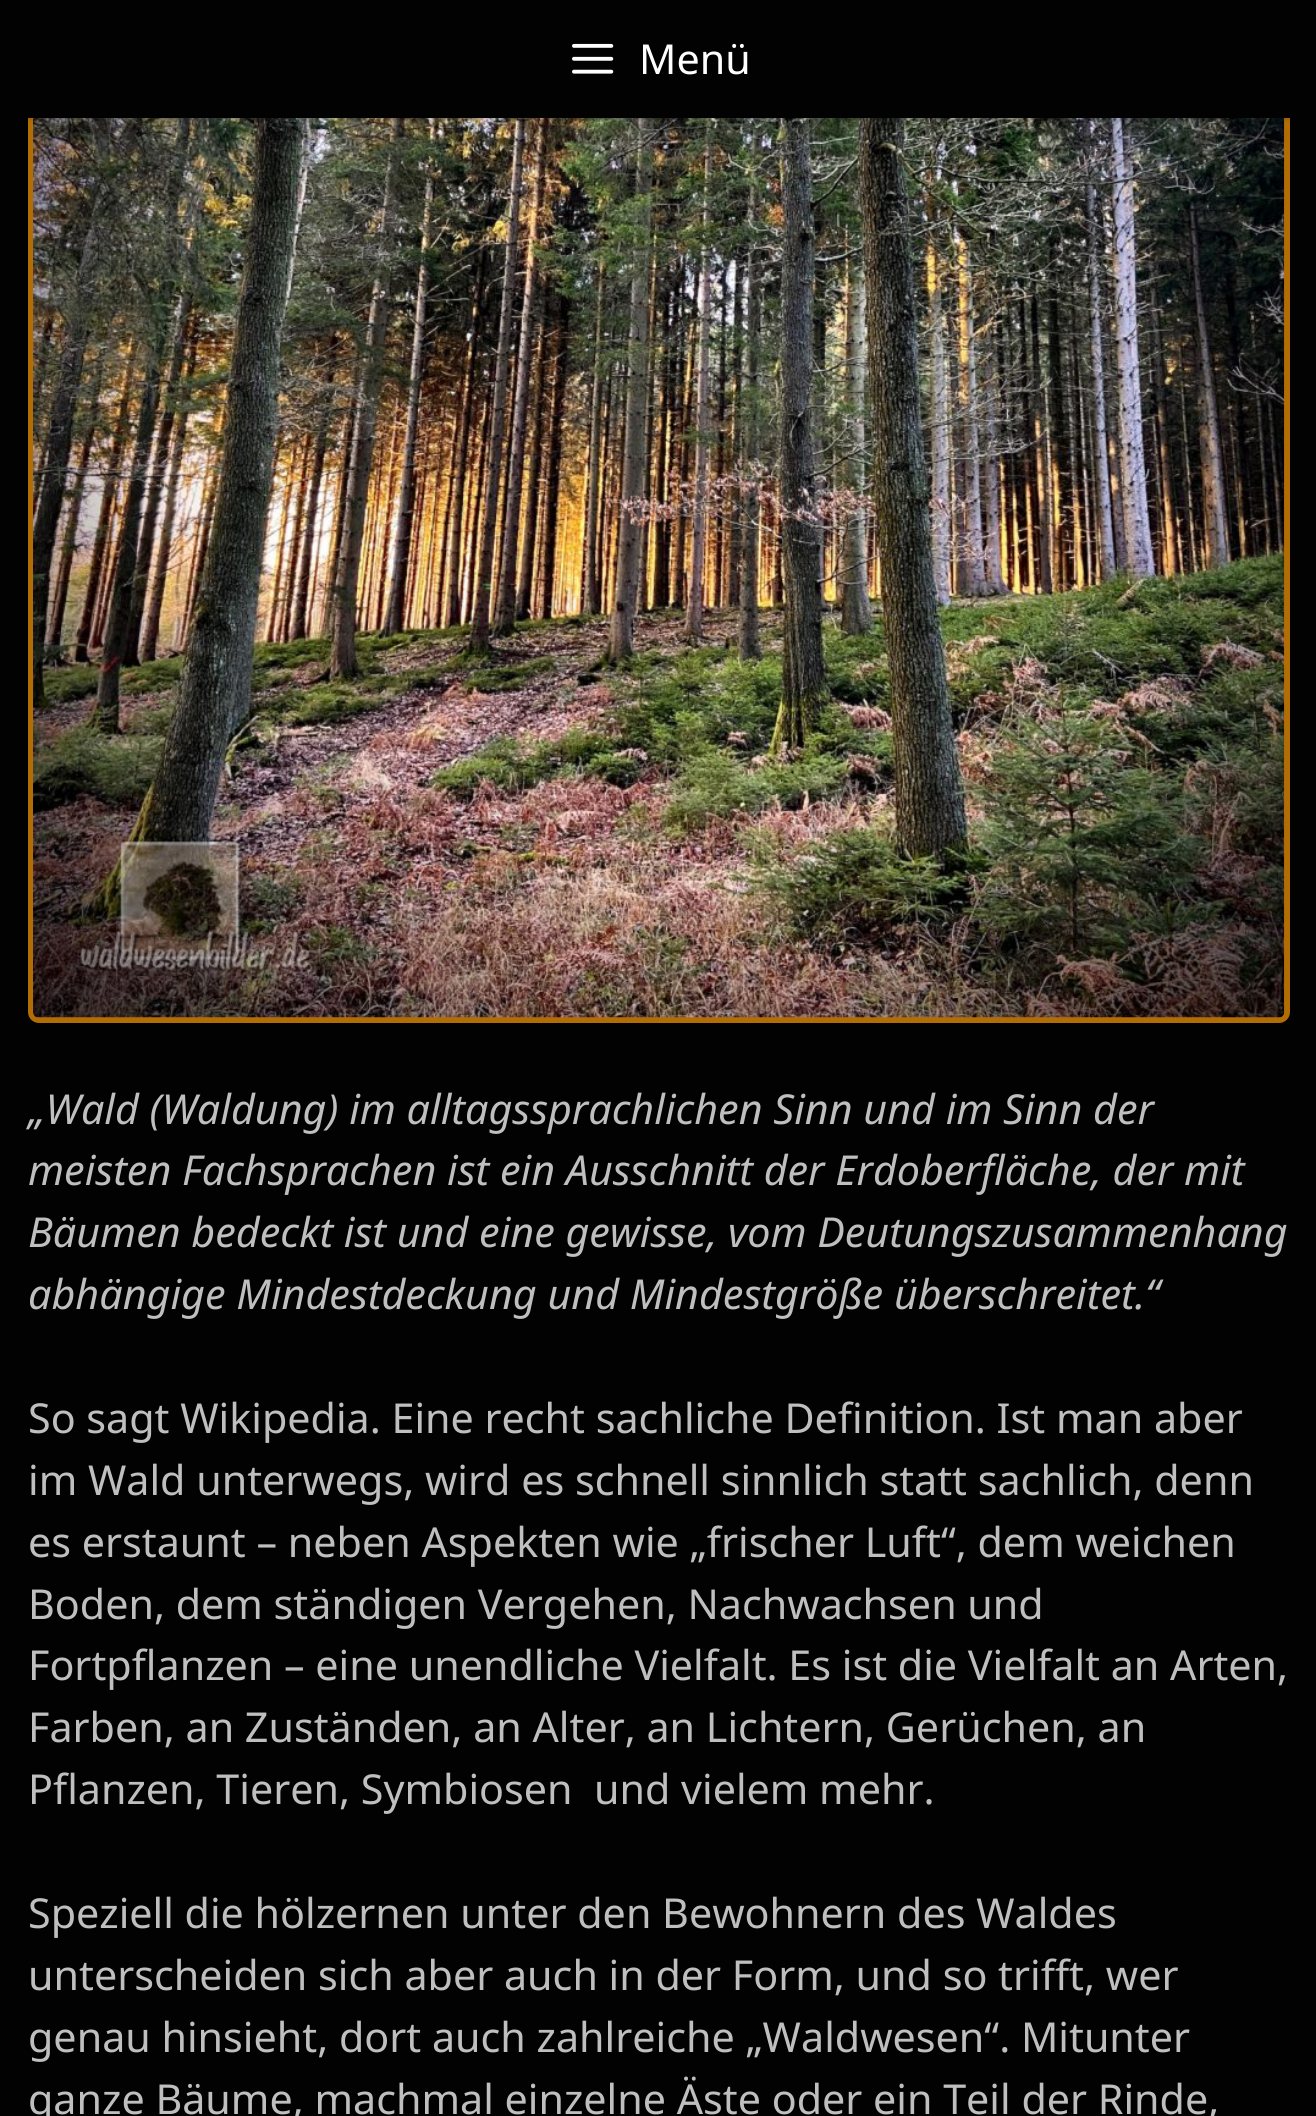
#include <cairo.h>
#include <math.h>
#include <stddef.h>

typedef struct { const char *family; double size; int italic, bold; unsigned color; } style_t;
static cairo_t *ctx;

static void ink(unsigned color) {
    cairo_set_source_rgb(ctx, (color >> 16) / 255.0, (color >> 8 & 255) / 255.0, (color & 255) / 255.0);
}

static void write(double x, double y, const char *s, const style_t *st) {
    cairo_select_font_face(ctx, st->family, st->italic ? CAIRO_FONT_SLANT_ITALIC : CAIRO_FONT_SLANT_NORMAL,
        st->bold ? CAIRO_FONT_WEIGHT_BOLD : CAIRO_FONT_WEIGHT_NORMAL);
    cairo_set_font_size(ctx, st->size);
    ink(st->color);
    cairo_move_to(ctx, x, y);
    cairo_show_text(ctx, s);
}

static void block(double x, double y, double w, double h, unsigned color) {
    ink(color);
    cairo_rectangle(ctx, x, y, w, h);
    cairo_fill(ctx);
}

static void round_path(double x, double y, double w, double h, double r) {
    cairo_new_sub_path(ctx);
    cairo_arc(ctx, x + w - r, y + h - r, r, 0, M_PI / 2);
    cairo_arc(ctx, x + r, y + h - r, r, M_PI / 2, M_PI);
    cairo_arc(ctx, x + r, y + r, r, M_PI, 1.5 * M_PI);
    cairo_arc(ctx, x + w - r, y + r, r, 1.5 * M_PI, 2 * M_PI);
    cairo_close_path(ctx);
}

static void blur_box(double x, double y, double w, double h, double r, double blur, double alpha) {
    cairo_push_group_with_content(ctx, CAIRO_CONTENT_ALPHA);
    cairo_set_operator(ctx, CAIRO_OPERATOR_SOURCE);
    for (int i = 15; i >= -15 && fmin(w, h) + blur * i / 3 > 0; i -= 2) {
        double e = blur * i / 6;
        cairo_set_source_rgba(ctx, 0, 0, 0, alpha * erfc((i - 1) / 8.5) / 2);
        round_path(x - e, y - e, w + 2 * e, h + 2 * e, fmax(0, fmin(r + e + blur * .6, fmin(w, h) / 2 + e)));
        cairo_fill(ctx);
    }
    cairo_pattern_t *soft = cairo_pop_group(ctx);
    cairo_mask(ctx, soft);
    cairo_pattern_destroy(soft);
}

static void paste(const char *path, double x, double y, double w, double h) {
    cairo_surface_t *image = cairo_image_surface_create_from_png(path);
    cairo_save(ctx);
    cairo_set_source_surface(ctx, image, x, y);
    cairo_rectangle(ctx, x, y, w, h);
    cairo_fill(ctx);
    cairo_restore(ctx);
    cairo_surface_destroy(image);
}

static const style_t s1 = {"Noto Sans", 41.25, 0, 0, 0xffffff};
static const style_t s2 = {"Noto Sans", 41.25, 1, 0, 0xbfbfbf};
static const style_t s3 = {"Noto Sans", 41.25, 0, 0, 0xbfbfbf};

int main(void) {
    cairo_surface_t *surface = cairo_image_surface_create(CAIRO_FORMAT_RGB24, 1316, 2116);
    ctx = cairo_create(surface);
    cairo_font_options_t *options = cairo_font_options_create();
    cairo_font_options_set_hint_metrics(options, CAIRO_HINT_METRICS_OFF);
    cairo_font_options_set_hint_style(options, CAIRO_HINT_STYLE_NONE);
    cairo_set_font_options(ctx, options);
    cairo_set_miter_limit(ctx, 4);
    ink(0x020202);
    cairo_paint(ctx);
    round_path(31, -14, 1256, 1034, 8);
    ink(0xb36d05);
    cairo_set_line_width(ctx, 6);
    cairo_stroke(ctx);
    paste("pic2.png", 33, 118, 1252, 900);
    ink(0x000000);
    blur_box(6, 11, 1306, 107, 0, 3, 0.2);
    block(28, 0, 1262, 118, 0x020202);
    paste("pic1.png", 572, 43, 42, 31);
    write(639, 74, "Menü", &s1);
    write(28, 1124, "„Wald (Waldung) im alltagssprachlichen Sinn und im Sinn der", &s2);
    write(28, 1185, "meisten Fachsprachen ist ein Ausschnitt der Erdoberfläche, der mit", &s2);
    write(28, 1247, "Bäumen bedeckt ist und eine gewisse, vom Deutungszusammenhang", &s2);
    write(28, 1309, "abhängige Mindestdeckung und Mindestgröße überschreitet.“", &s2);
    write(28, 1433, "So sagt Wikipedia. Eine recht sachliche Definition. Ist man aber", &s3);
    write(28, 1495, "im Wald unterwegs, wird es schnell sinnlich statt sachlich, denn", &s3);
    write(28, 1557, "es erstaunt – neben Aspekten wie „frischer Luft“, dem weichen", &s3);
    write(28, 1619, "Boden, dem ständigen Vergehen, Nachwachsen und", &s3);
    write(28, 1680, "Fortpflanzen – eine unendliche Vielfalt. Es ist die Vielfalt an Arten,", &s3);
    write(28, 1742, "Farben, an Zuständen, an Alter, an Lichtern, Gerüchen, an", &s3);
    write(28, 1804, "Pflanzen, Tieren, Symbiosen  und vielem mehr.", &s3);
    write(28, 1928, "Speziell die hölzernen unter den Bewohnern des Waldes", &s3);
    write(28, 1990, "unterscheiden sich aber auch in der Form, und so trifft, wer", &s3);
    write(28, 2052, "genau hinsieht, dort auch zahlreiche „Waldwesen“. Mitunter", &s3);
    write(28, 2114, "ganze Bäume, machmal einzelne Äste oder ein Teil der Rinde,", &s3);
    cairo_surface_write_to_png(surface, "screenshot.png");
    cairo_font_options_destroy(options);
    cairo_destroy(ctx);
    cairo_surface_destroy(surface);
    return 0;
}
